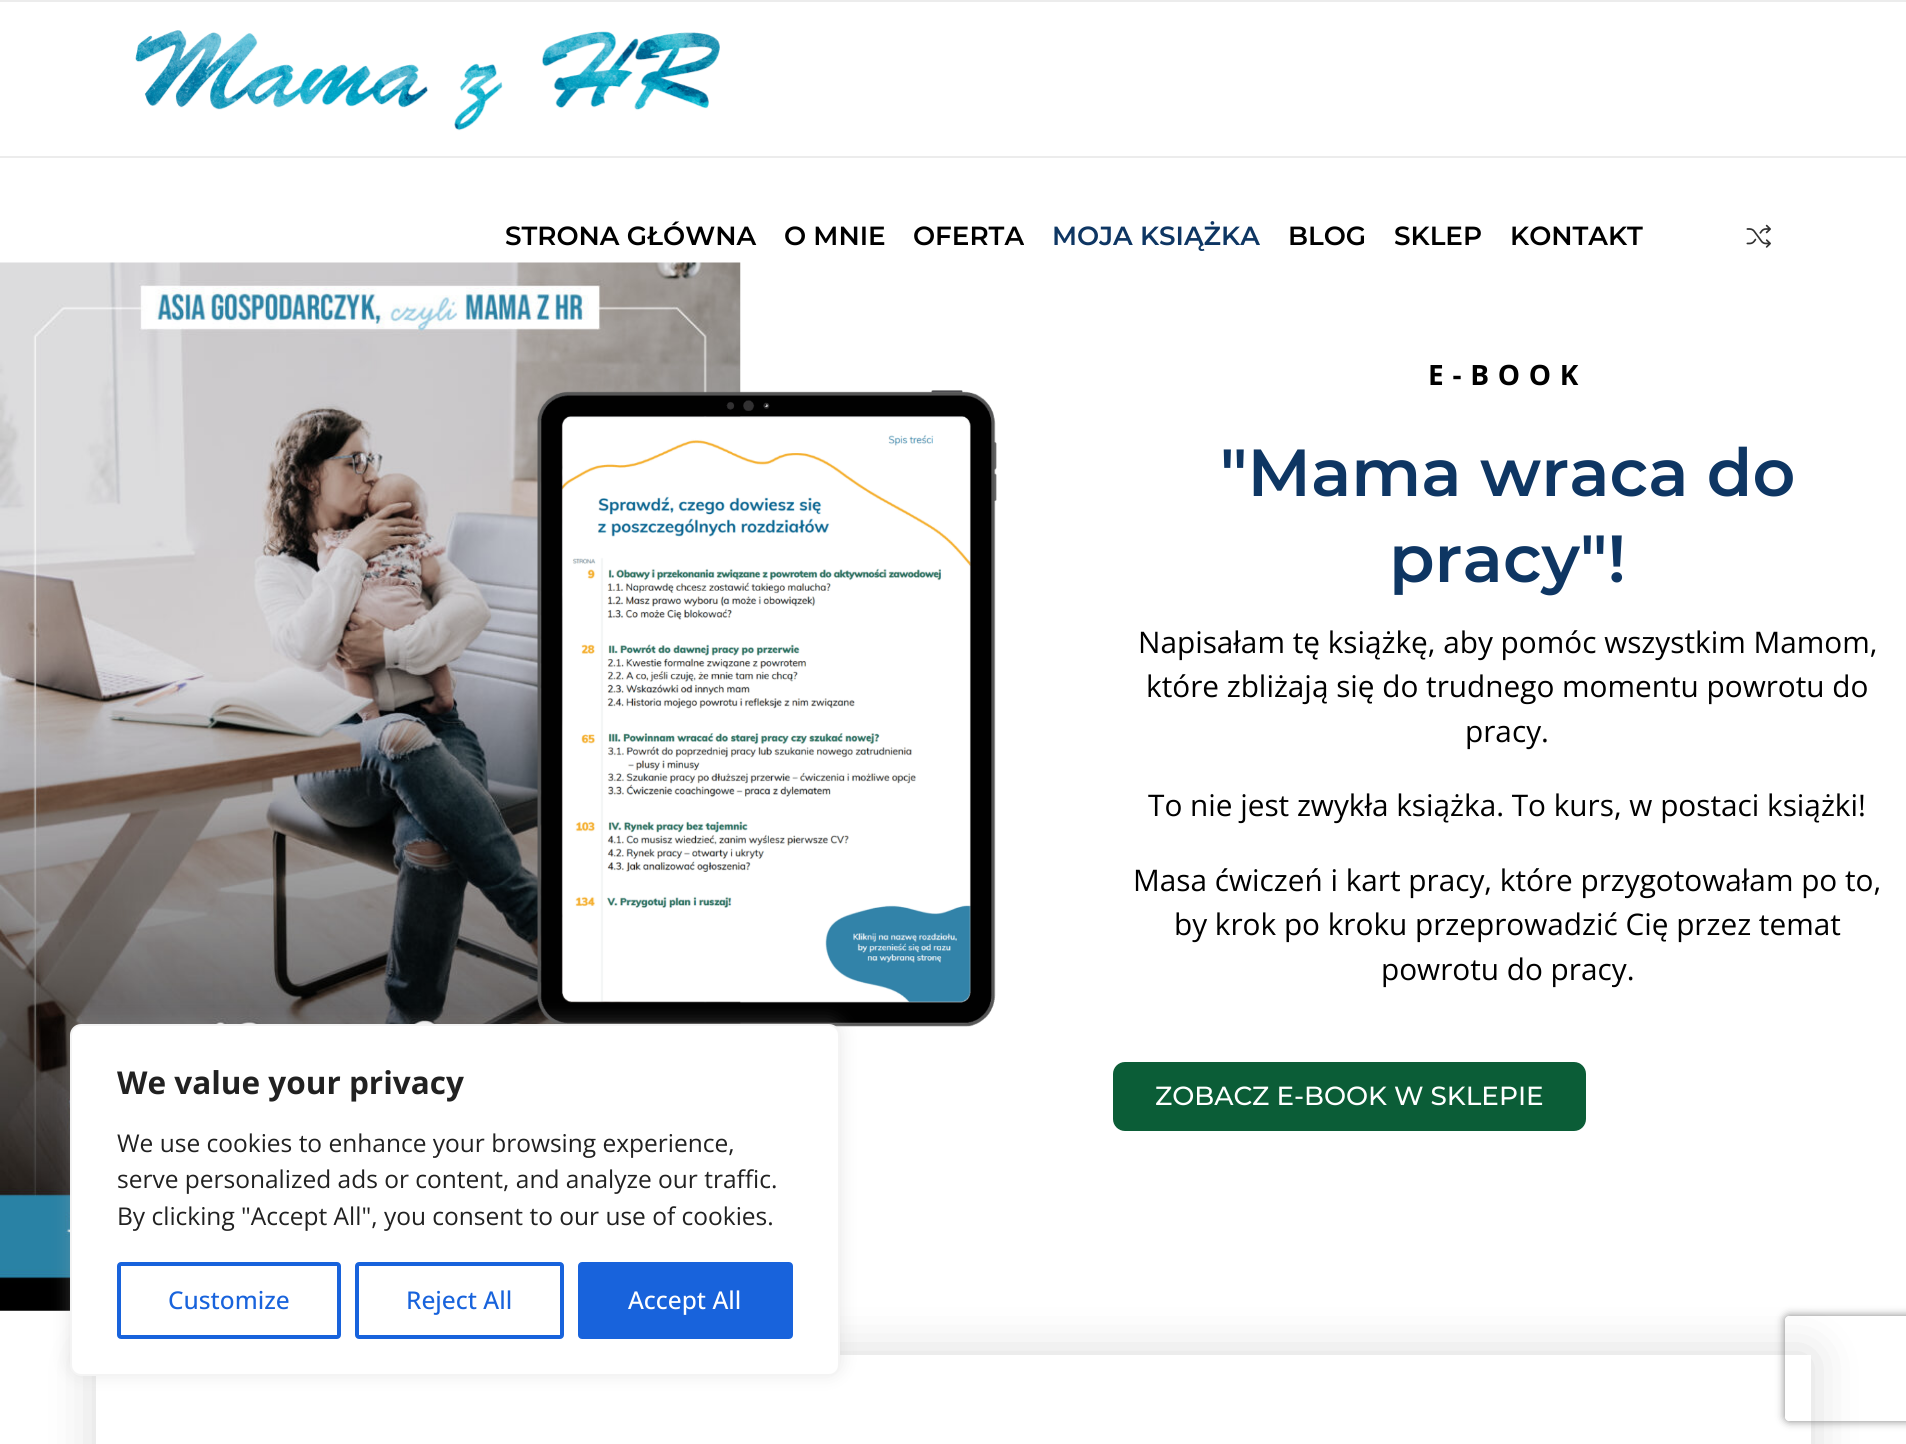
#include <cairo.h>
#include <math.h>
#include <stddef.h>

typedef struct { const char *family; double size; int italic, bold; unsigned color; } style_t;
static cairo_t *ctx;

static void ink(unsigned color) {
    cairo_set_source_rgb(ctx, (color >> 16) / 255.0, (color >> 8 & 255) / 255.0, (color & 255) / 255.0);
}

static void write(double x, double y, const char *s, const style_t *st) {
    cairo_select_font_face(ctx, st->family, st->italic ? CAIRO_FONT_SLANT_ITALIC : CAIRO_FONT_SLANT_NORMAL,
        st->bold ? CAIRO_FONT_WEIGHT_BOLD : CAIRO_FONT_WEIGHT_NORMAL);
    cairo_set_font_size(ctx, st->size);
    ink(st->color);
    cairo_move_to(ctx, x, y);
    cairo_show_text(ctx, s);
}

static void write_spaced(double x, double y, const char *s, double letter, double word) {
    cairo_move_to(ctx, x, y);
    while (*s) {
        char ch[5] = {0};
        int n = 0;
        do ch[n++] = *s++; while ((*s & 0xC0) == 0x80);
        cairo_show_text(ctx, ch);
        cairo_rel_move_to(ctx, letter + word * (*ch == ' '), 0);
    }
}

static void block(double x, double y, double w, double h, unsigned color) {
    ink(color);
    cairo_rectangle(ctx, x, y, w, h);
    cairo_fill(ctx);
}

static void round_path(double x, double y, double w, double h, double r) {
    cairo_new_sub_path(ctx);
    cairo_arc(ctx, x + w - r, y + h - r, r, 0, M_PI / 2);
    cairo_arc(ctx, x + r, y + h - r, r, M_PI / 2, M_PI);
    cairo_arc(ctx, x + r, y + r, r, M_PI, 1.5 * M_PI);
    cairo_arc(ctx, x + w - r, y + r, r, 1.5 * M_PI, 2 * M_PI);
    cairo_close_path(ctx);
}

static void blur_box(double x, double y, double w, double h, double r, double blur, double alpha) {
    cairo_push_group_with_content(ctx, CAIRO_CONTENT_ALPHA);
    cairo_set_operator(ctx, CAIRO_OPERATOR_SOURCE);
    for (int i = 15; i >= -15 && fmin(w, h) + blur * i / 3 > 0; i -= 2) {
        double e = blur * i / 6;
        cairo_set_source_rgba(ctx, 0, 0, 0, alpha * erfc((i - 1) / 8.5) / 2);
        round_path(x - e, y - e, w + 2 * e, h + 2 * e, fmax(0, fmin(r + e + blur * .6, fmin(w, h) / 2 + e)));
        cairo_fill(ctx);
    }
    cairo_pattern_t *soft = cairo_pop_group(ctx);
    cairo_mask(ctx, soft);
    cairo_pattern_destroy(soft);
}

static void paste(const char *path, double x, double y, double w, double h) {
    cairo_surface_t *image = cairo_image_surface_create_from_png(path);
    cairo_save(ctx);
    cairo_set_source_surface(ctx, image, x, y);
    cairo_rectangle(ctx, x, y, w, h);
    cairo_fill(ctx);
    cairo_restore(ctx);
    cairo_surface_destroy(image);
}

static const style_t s1 = {"Montserrat SemiBold", 26.25, 0, 0, 0x000000};
static const style_t s2 = {"Montserrat SemiBold", 26.25, 0, 0, 0x0e3663};
static const style_t s3 = {"Montserrat SemiBold", 66.5, 0, 0, 0x0e3663};
static const style_t s4 = {"Open Sans", 29.75, 0, 0, 0x000000};
static const style_t s5 = {"Montserrat Medium", 26.25, 0, 0, 0xffffff};
static const style_t s6 = {"Open Sans", 31.5, 0, 1, 0x212121};
static const style_t s7 = {"Open Sans", 24.5, 0, 0, 0x212121};
static const style_t s8 = {"Open Sans Medium", 24.5, 0, 0, 0x1863dc};
static const style_t s9 = {"Open Sans Medium", 24.5, 0, 0, 0xffffff};

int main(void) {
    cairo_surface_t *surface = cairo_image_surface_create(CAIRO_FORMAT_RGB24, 1906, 1444);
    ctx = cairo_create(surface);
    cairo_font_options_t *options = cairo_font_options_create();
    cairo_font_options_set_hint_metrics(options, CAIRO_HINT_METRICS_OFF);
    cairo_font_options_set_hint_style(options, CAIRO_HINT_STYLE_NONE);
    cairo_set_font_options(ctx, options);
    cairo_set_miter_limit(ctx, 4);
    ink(0xffffff);
    cairo_paint(ctx);
    block(0, 0, 1906, 2, 0xececec);
    block(0, 156, 1906, 2, 0xececec);
    paste("pic1.png", 135, 30, 585, 101);
    write(505, 245, "STRONA GŁÓWNA", &s1);
    write(784, 245, "O MNIE", &s1);
    write(913, 245, "OFERTA", &s1);
    write(1052, 245, "MOJA KSIĄŻKA", &s2);
    write(1288, 245, "BLOG", &s1);
    write(1394, 245, "SKLEP", &s1);
    write(1510, 245, "KONTAKT", &s1);
    paste("pic2.png", 1746, 224, 25, 24);
    paste("pic3.png", 0, 262, 741, 1049);
    paste("pic4.png", 537, 390, 460, 637);
    cairo_select_font_face(ctx, "Open Sans", CAIRO_FONT_SLANT_NORMAL, CAIRO_FONT_WEIGHT_BOLD);
    cairo_set_font_size(ctx, 28);
    write_spaced(1428, 385, "E-BOOK", 8.75, 0);
    write(1220, 496, "\"Mama wraca do", &s3);
    write(1389, 582, "pracy\"!", &s3);
    write(1138, 653, "Napisałam tę książkę, aby pomóc wszystkim Mamom,", &s4);
    write(1146, 697, "które zbliżają się do trudnego momentu powrotu do", &s4);
    write(1465, 742, "pracy.", &s4);
    write(1148, 816, "To nie jest zwykła książka. To kurs, w postaci książki!", &s4);
    write(1133, 891, "Masa ćwiczeń i kart pracy, które przygotowałam po to,", &s4);
    write(1174, 935, "by krok po kroku przeprowadzić Cię przez temat", &s4);
    write(1381, 980, "powrotu do pracy.", &s4);
    ink(0x0b5d37);
    round_path(1113, 1062, 473, 69, 12);
    cairo_fill(ctx);
    write(1155, 1105, "ZOBACZ E-BOOK W SKLEPIE", &s5);
    ink(0x000000);
    blur_box(96, 1355, 1715, 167, 0, 26, 0.15);
    block(96, 1355, 1715, 89, 0xffffff);
    ink(0xacabab);
    blur_box(70, 1022, 770, 352, 11, 9, 0.3);
    ink(0xffffff);
    round_path(71, 1025, 768, 350, 10);
    cairo_fill_preserve(ctx);
    ink(0xf4f4f4);
    cairo_stroke(ctx);
    write(117, 1094, "We value your privacy", &s6);
    write(117, 1152, "We use cookies to enhance your browsing experience,", &s7);
    write(117, 1188, "serve personalized ads or content, and analyze our traffic.", &s7);
    write(117, 1225, "By clicking \"Accept All\", you consent to our use of cookies.", &s7);
    round_path(119, 1264, 220, 73, 2);
    ink(0x1863dc);
    cairo_set_line_width(ctx, 4);
    cairo_stroke(ctx);
    write(168, 1309, "Customize", &s8);
    round_path(357, 1264, 205, 73, 2);
    cairo_stroke(ctx);
    write(406, 1309, "Reject All", &s8);
    round_path(580, 1264, 211, 73, 2);
    cairo_fill_preserve(ctx);
    cairo_stroke(ctx);
    write(628, 1309, "Accept All", &s9);
    cairo_save(ctx);
    cairo_set_fill_rule(ctx, CAIRO_FILL_RULE_EVEN_ODD);
    cairo_new_path(ctx);
    cairo_move_to(ctx, 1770, 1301);
    cairo_line_to(ctx, 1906, 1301);
    cairo_line_to(ctx, 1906, 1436);
    cairo_line_to(ctx, 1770, 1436);
    cairo_close_path(ctx);
    cairo_move_to(ctx, 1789, 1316);
    cairo_line_to(ctx, 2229, 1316);
    cairo_curve_to(ctx, 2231, 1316, 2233, 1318, 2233, 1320);
    cairo_line_to(ctx, 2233, 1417);
    cairo_curve_to(ctx, 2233, 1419, 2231, 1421, 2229, 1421);
    cairo_line_to(ctx, 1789, 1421);
    cairo_curve_to(ctx, 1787, 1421, 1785, 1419, 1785, 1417);
    cairo_line_to(ctx, 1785, 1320);
    cairo_curve_to(ctx, 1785, 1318, 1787, 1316, 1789, 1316);
    cairo_close_path(ctx);
    cairo_clip(ctx);
    ink(0x808080);
    blur_box(1785, 1316, 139, 105, 4, 4.5, 1);
    cairo_restore(ctx);
    cairo_surface_write_to_png(surface, "screenshot.png");
    cairo_font_options_destroy(options);
    cairo_destroy(ctx);
    cairo_surface_destroy(surface);
    return 0;
}
